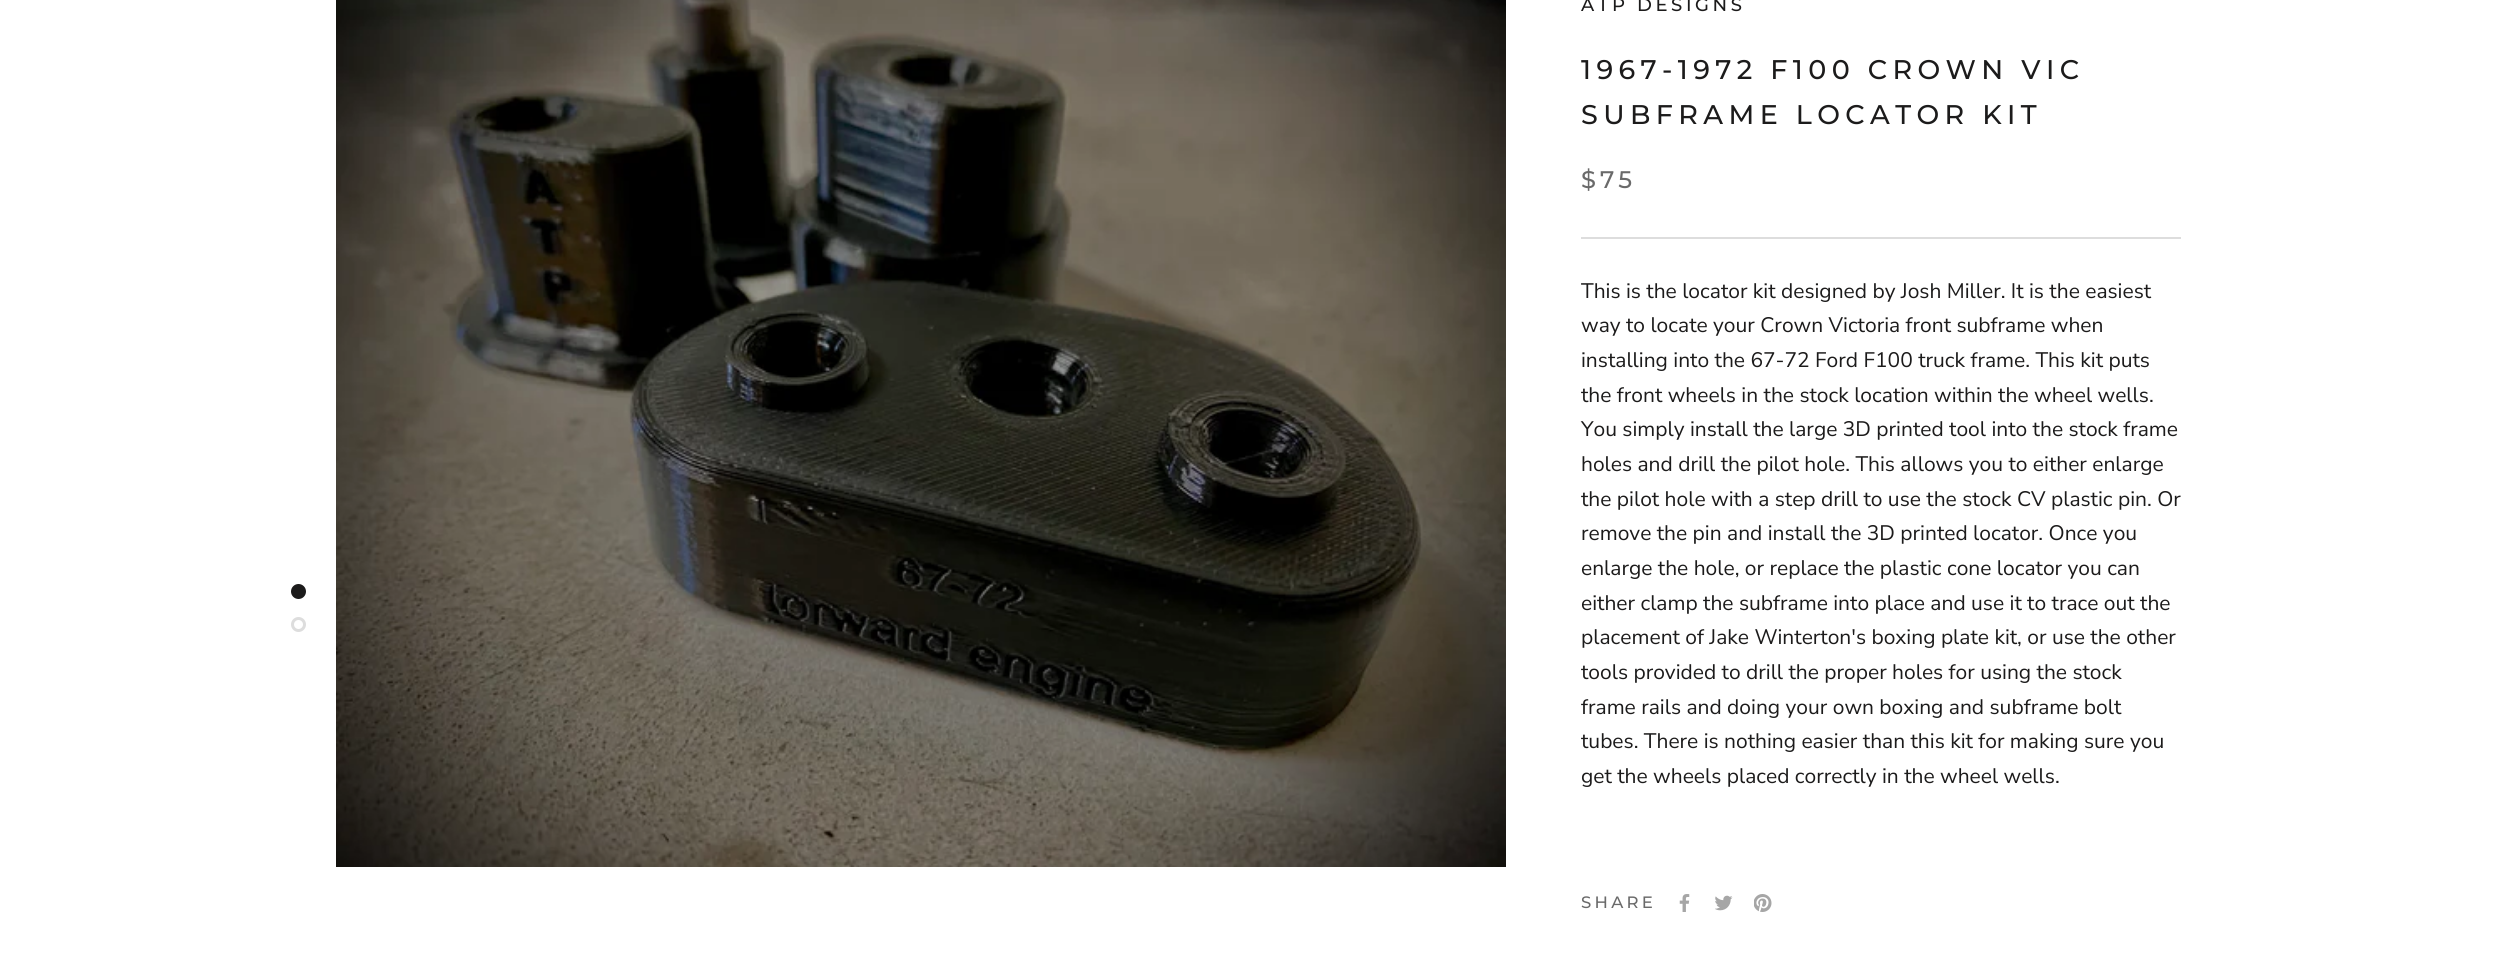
#include <cairo.h>
#include <math.h>
#include <stddef.h>

typedef struct { const char *family; double size; int italic, bold; unsigned color; } style_t;
static cairo_t *ctx;

static void ink(unsigned color) {
    cairo_set_source_rgb(ctx, (color >> 16) / 255.0, (color >> 8 & 255) / 255.0, (color & 255) / 255.0);
}

static void write(double x, double y, const char *s, const style_t *st) {
    cairo_select_font_face(ctx, st->family, st->italic ? CAIRO_FONT_SLANT_ITALIC : CAIRO_FONT_SLANT_NORMAL,
        st->bold ? CAIRO_FONT_WEIGHT_BOLD : CAIRO_FONT_WEIGHT_NORMAL);
    cairo_set_font_size(ctx, st->size);
    ink(st->color);
    cairo_move_to(ctx, x, y);
    cairo_show_text(ctx, s);
}

static void write_spaced(double x, double y, const char *s, double letter, double word) {
    cairo_move_to(ctx, x, y);
    while (*s) {
        char ch[5] = {0};
        int n = 0;
        do ch[n++] = *s++; while ((*s & 0xC0) == 0x80);
        cairo_show_text(ctx, ch);
        cairo_rel_move_to(ctx, letter + word * (*ch == ' '), 0);
    }
}

static void block(double x, double y, double w, double h, unsigned color) {
    ink(color);
    cairo_rectangle(ctx, x, y, w, h);
    cairo_fill(ctx);
}

static void paste(const char *path, double x, double y, double w, double h) {
    cairo_surface_t *image = cairo_image_surface_create_from_png(path);
    cairo_save(ctx);
    cairo_set_source_surface(ctx, image, x, y);
    cairo_rectangle(ctx, x, y, w, h);
    cairo_fill(ctx);
    cairo_restore(ctx);
    cairo_surface_destroy(image);
}

static const style_t s1 = {"Nunito Sans", 21, 0, 0, 0x1c1b1b};

int main(void) {
    cairo_surface_t *surface = cairo_image_surface_create(CAIRO_FORMAT_RGB24, 2516, 963);
    ctx = cairo_create(surface);
    cairo_font_options_t *options = cairo_font_options_create();
    cairo_font_options_set_hint_metrics(options, CAIRO_HINT_METRICS_OFF);
    cairo_font_options_set_hint_style(options, CAIRO_HINT_STYLE_NONE);
    cairo_set_font_options(ctx, options);
    cairo_set_miter_limit(ctx, 4);
    ink(0xffffff);
    cairo_paint(ctx);
    ink(0x1c1b1b);
    cairo_arc(ctx, 298.5, 591.5, 6, 0, 2 * M_PI);
    cairo_fill_preserve(ctx);
    cairo_set_line_width(ctx, 3);
    cairo_stroke(ctx);
    cairo_arc(ctx, 298.5, 624.5, 6, 0, 2 * M_PI);
    ink(0xdddddd);
    cairo_stroke(ctx);
    paste("pic1.png", 336, 0, 1170, 867);
    cairo_select_font_face(ctx, "Montserrat Medium", CAIRO_FONT_SLANT_NORMAL, CAIRO_FONT_WEIGHT_NORMAL);
    cairo_set_font_size(ctx, 18);
    ink(0x1c1b1b);
    write_spaced(1581, 11, "ATP DESIGNS", 3.6, 0);
    cairo_set_font_size(ctx, 27);
    write_spaced(1581, 79, "1967-1972 F100 CROWN VIC", 5.4, 0);
    write_spaced(1581, 124, "SUBFRAME LOCATOR KIT", 5.4, 0);
    cairo_set_font_size(ctx, 24);
    ink(0x6a6a6a);
    write_spaced(1581, 188, "$75", 4, 0);
    block(1581, 237, 600, 2, 0xdddddd);
    write(1581, 298, "This is the locator kit designed by Josh Miller. It is the easiest", &s1);
    write(1581, 332, "way to locate your Crown Victoria front subframe when", &s1);
    write(1581, 367, "installing into the 67-72 Ford F100 truck frame. This kit puts", &s1);
    write(1581, 402, "the front wheels in the stock location within the wheel wells.", &s1);
    write(1581, 436, "You simply install the large 3D printed tool into the stock frame", &s1);
    write(1581, 471, "holes and drill the pilot hole. This allows you to either enlarge", &s1);
    write(1581, 506, "the pilot hole with a step drill to use the stock CV plastic pin. Or", &s1);
    write(1581, 540, "remove the pin and install the 3D printed locator. Once you", &s1);
    write(1581, 575, "enlarge the hole, or replace the plastic cone locator you can", &s1);
    write(1581, 610, "either clamp the subframe into place and use it to trace out the", &s1);
    write(1581, 644, "placement of Jake Winterton's boxing plate kit, or use the other", &s1);
    write(1581, 679, "tools provided to drill the proper holes for using the stock", &s1);
    write(1581, 714, "frame rails and doing your own boxing and subframe bolt", &s1);
    write(1581, 748, "tubes. There is nothing easier than this kit for making sure you", &s1);
    write(1581, 783, "get the wheels placed correctly in the wheel wells.", &s1);
    cairo_select_font_face(ctx, "Montserrat Medium", CAIRO_FONT_SLANT_NORMAL, CAIRO_FONT_WEIGHT_NORMAL);
    cairo_set_font_size(ctx, 16.5);
    ink(0x6a6a6a);
    write_spaced(1581, 908, "SHARE", 3.25, 0);
    paste("pic2.png", 1679, 894, 11, 18);
    paste("pic3.png", 1715, 895, 18, 16);
    paste("pic4.png", 1754, 894, 18, 18);
    cairo_surface_write_to_png(surface, "screenshot.png");
    cairo_font_options_destroy(options);
    cairo_destroy(ctx);
    cairo_surface_destroy(surface);
    return 0;
}
